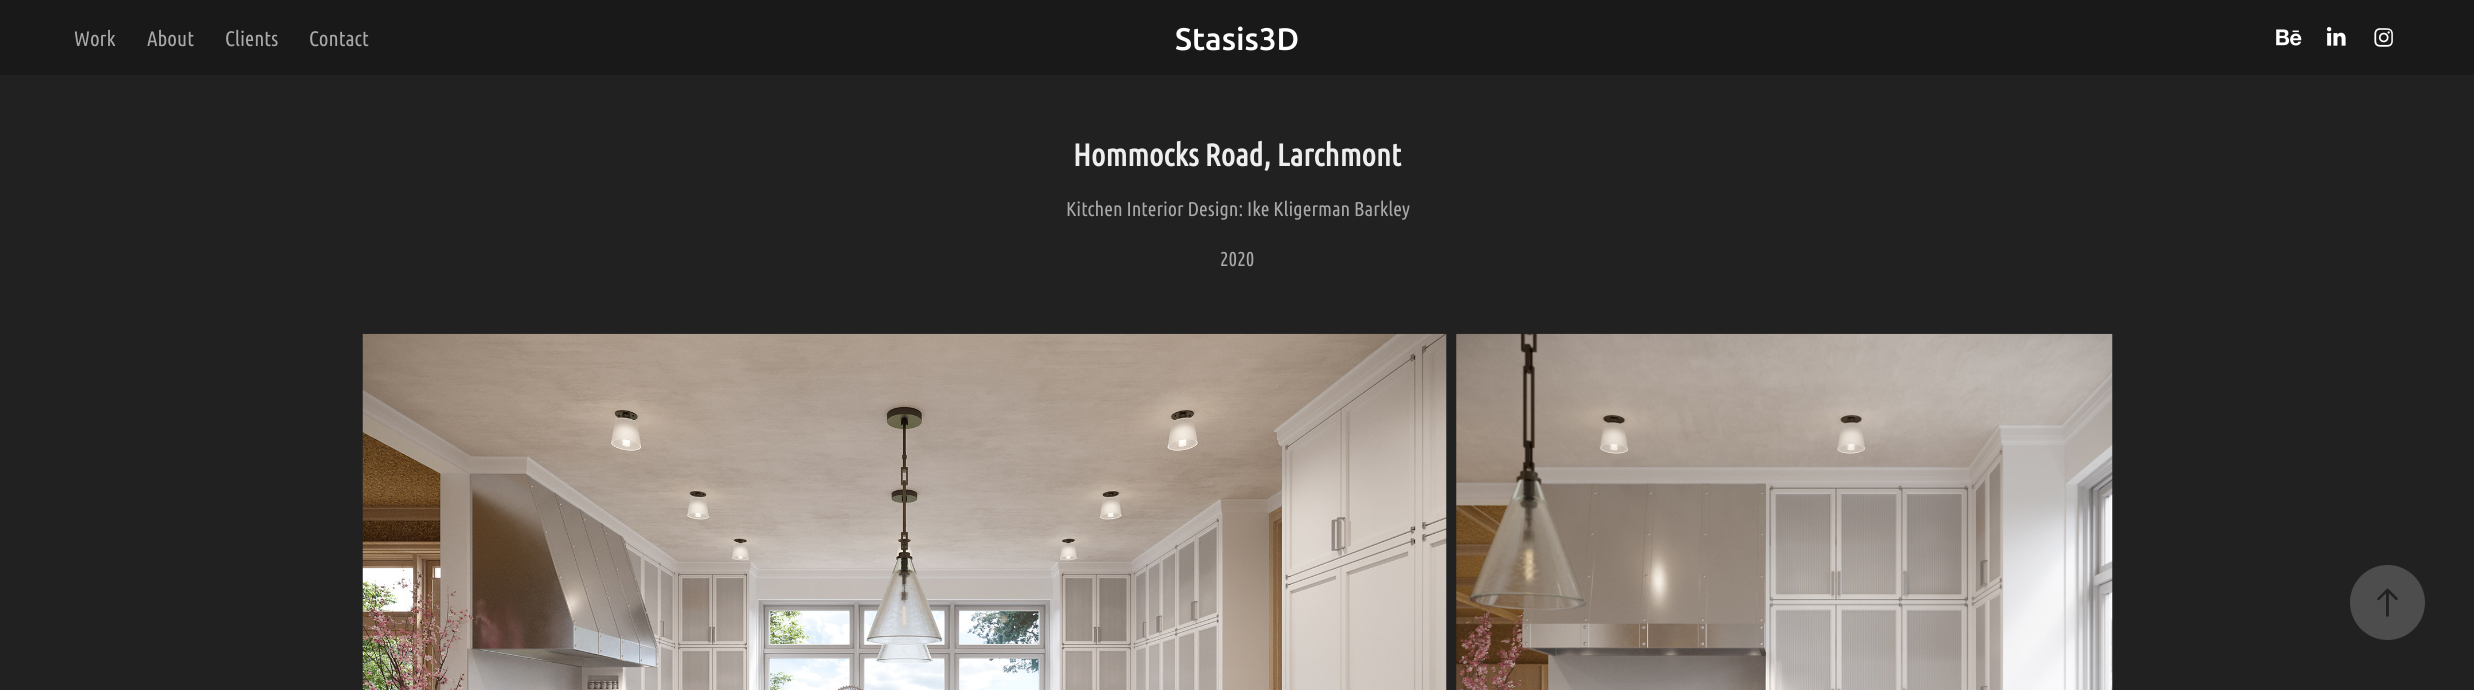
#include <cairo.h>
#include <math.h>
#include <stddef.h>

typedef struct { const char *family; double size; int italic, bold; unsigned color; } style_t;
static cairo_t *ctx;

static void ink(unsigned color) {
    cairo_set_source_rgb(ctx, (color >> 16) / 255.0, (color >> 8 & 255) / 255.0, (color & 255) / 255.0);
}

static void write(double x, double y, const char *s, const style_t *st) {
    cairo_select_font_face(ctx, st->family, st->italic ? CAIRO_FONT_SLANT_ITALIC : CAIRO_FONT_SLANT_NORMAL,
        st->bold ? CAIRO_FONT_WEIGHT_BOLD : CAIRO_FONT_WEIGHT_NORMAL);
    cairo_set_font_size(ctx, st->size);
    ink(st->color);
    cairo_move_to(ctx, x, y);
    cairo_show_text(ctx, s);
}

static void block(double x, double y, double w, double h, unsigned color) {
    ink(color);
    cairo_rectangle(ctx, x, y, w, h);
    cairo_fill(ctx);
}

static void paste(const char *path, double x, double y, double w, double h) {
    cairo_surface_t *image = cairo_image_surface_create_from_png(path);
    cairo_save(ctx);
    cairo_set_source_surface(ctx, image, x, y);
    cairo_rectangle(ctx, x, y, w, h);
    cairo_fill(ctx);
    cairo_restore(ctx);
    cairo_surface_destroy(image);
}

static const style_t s1 = {"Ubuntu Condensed", 21, 0, 0, 0xa9a9a9};
static const style_t s2 = {"Ubuntu Medium", 31.25, 0, 0, 0xffffff};
static const style_t s3 = {"Ubuntu Condensed", 31.25, 0, 1, 0xeeeeee};
static const style_t s4 = {"Ubuntu Condensed", 20, 0, 0, 0xa9a9a9};

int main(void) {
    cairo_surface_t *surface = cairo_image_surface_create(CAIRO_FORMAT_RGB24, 2474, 690);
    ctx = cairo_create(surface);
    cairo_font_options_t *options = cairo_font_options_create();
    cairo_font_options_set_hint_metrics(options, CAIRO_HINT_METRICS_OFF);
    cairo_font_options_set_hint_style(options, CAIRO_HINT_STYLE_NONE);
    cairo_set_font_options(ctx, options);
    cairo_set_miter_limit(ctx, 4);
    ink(0x212121);
    cairo_paint(ctx);
    block(0, 0, 2474, 75, 0x191919);
    write(74, 46, "Work", &s1);
    write(147, 46, "About", &s1);
    write(225, 46, "Clients", &s1);
    write(309, 46, "Contact", &s1);
    write(1175, 50, "Stasis3D", &s2);
    paste("pic1.png", 2276, 29, 26, 17);
    paste("pic2.png", 2326, 27, 20, 19);
    paste("pic3.png", 2374, 28, 19, 19);
    write(1073, 166, "Hommocks Road, Larchmont", &s3);
    write(1066, 216, "Kitchen Interior Design: Ike Kligerman Barkley", &s4);
    write(1220, 266, "2020", &s4);
    paste("pic4.png", 362, 333, 1085, 357);
    paste("pic5.png", 1456, 333, 657, 357);
    ink(0x4d4d4d);
    cairo_arc(ctx, 2387.5, 602.5, 37.5, 0, 2 * M_PI);
    cairo_fill(ctx);
    paste("pic6.png", 2377, 588, 21, 29);
    cairo_surface_write_to_png(surface, "screenshot.png");
    cairo_font_options_destroy(options);
    cairo_destroy(ctx);
    cairo_surface_destroy(surface);
    return 0;
}
